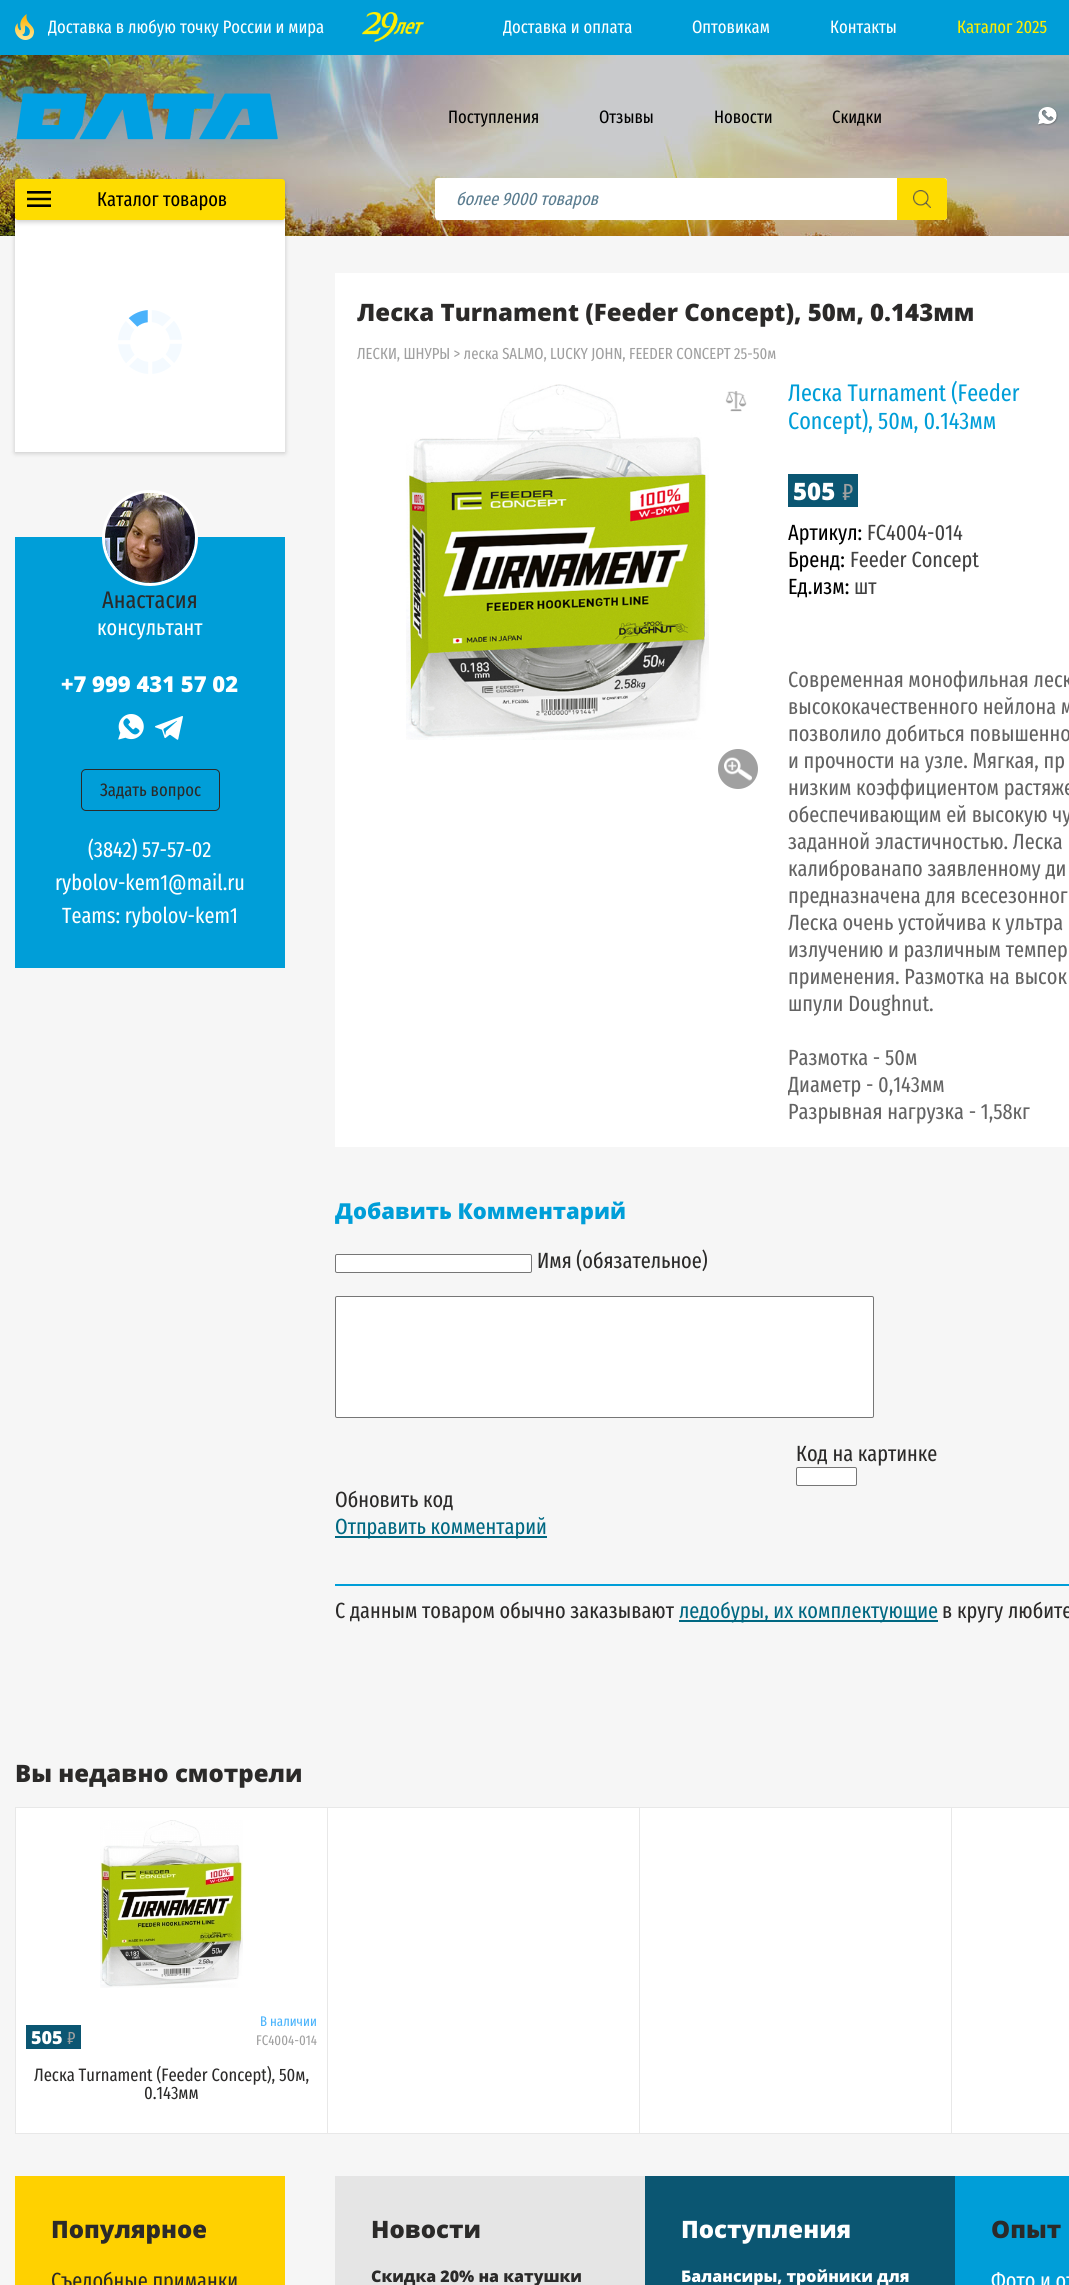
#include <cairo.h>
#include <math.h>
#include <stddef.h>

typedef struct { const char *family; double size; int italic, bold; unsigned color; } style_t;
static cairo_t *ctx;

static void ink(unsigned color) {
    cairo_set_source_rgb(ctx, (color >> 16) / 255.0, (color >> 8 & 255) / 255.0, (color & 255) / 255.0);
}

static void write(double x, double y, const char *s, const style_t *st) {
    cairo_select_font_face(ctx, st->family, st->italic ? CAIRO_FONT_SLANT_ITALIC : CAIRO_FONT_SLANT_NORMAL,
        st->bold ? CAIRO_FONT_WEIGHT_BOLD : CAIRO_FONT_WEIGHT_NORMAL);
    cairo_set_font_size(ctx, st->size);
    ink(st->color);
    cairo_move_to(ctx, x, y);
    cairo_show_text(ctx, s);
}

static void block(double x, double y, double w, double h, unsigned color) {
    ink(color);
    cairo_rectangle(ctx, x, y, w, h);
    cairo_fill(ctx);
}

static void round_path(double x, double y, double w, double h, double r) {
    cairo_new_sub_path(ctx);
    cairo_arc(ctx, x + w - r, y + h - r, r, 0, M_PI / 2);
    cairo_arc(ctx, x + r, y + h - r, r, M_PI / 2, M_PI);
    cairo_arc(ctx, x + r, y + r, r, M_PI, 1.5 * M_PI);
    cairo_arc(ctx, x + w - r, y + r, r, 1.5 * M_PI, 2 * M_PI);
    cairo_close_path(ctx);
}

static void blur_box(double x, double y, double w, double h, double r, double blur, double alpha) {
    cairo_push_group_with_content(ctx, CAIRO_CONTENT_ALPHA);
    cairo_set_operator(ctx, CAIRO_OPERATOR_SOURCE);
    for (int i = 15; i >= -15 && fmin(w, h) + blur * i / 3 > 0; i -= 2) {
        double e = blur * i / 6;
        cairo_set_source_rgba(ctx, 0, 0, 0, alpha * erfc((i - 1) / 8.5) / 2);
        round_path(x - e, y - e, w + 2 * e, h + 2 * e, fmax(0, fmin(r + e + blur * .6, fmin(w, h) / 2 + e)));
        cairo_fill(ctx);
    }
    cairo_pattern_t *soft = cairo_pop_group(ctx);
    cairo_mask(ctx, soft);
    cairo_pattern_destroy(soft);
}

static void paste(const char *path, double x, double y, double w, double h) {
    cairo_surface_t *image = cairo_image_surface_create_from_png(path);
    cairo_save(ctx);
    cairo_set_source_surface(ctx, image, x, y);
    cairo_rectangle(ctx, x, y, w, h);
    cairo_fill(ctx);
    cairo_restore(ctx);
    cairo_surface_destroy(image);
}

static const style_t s1 = {"Fira Sans Extra Condensed", 18, 0, 0, 0xffffff};
static const style_t s2 = {"Fira Sans Extra Condensed", 18, 0, 0, 0xffed00};
static const style_t s3 = {"Fira Sans Extra Condensed", 18, 0, 0, 0x000000};
static const style_t s4 = {"Fira Sans Extra Condensed", 20, 0, 0, 0x000000};
static const style_t s5 = {"Fira Sans Extra Condensed", 18, 1, 0, 0x5a7c8f};
static const style_t s6 = {"Fira Sans Extra Condensed", 24, 0, 0, 0x2b2a29};
static const style_t s7 = {"Fira Sans Extra Condensed", 22, 0, 0, 0xffffff};
static const style_t s8 = {"Open Sans ExtraBold", 22, 0, 0, 0xffffff};
static const style_t s9 = {"Fira Sans Extra Condensed", 18, 0, 0, 0x2b2a29};
static const style_t s10 = {"Open Sans ExtraBold", 24, 0, 0, 0x2b2a29};
static const style_t s11 = {"Fira Sans Extra Condensed", 16, 0, 0, 0xa0a0a0};
static const style_t s12 = {"Fira Sans Extra Condensed", 24, 0, 0, 0x009ed8};
static const style_t s13 = {"Open Sans ExtraBold", 24, 0, 0, 0xffffff};
static const style_t s14 = {"Fira Sans Extra Condensed", 24, 0, 0, 0xa0a0a0};
static const style_t s15 = {"Fira Sans Extra Condensed", 22, 0, 0, 0x000000};
static const style_t s16 = {"Fira Sans Extra Condensed", 22, 0, 0, 0x424242};
static const style_t s17 = {"Fira Sans Extra Condensed", 22, 0, 0, 0x636363};
static const style_t s18 = {"Open Sans ExtraBold", 22, 0, 0, 0x009ed8};
static const style_t s19 = {"Fira Sans Extra Condensed", 22, 0, 0, 0x2b2a29};
static const style_t s20 = {"Fira Sans Extra Condensed", 22, 0, 0, 0x006882};
static const style_t s21 = {"Open Sans ExtraBold", 18, 0, 0, 0xffffff};
static const style_t s22 = {"Fira Sans Extra Condensed", 18, 0, 0, 0xa0a0a0};
static const style_t s23 = {"Fira Sans Extra Condensed", 14, 0, 0, 0x49b3fb};
static const style_t s24 = {"Fira Sans Extra Condensed", 14, 0, 0, 0xa0a0a0};
static const style_t s25 = {"Open Sans ExtraBold", 16, 0, 0, 0x2b2a29};
static const style_t s26 = {"Open Sans ExtraBold", 16, 0, 0, 0xffffff};

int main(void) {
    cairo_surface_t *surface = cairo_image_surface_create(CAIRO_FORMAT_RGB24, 1069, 2285);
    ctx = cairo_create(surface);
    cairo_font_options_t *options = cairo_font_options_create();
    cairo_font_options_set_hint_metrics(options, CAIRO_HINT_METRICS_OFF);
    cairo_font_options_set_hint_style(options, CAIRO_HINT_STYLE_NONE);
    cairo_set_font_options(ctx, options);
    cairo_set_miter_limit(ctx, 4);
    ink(0xf6f6f6);
    cairo_paint(ctx);
    paste("pic1.png", 0, 55, 1069, 181);
    block(0, 0, 1069, 55, 0x009ed8);
    paste("pic2.png", 15, 14, 19, 26);
    write(48, 33, "Доставка в любую точку России и мира", &s1);
    paste("pic3.png", 362, 12, 62, 30);
    write(503, 33, "Доставка и оплата", &s1);
    write(692, 33, "Оптовикам", &s1);
    write(830, 33, "Контакты", &s1);
    write(957, 33, "Каталог 2025", &s2);
    paste("pic4.png", 16, 93, 262, 47);
    write(448, 123, "Поступления", &s3);
    write(599, 123, "Отзывы", &s3);
    write(714, 123, "Новости", &s3);
    write(832, 123, "Скидки", &s3);
    paste("pic5.png", 1038, 107, 20, 19);
    ink(0x000000);
    blur_box(15, 219, 270, 234, 0, 2.5, 0.2);
    block(15, 218, 270, 234, 0xffffff);
    ink(0x000000);
    blur_box(15, 181, 270, 41, 3, 2.5, 0.2);
    ink(0xfedc00);
    round_path(15, 179, 270, 41, 3);
    cairo_fill(ctx);
    paste("pic6.png", 27, 191, 24, 16);
    write(97, 206, "Каталог товаров", &s4);
    ink(0xffffff);
    round_path(435, 178, 512, 42, 3);
    cairo_fill(ctx);
    write(456, 205, "более 9000 товаров", &s5);
    ink(0xfedc00);
    cairo_new_path(ctx);
    cairo_move_to(ctx, 897, 178);
    cairo_line_to(ctx, 944, 178);
    cairo_curve_to(ctx, 945.5, 178, 947, 179.5, 947, 181);
    cairo_line_to(ctx, 947, 217);
    cairo_curve_to(ctx, 947, 218.5, 945.5, 220, 944, 220);
    cairo_line_to(ctx, 897, 220);
    cairo_close_path(ctx);
    cairo_fill(ctx);
    paste("pic7.png", 913, 190, 18, 18);
    paste("pic8.png", 118, 310, 64, 64);
    block(15, 537, 270, 431, 0x009ed8);
    cairo_arc(ctx, 150, 538, 46.5, 0, 2 * M_PI);
    ink(0xffffff);
    cairo_set_line_width(ctx, 3);
    cairo_stroke(ctx);
    paste("pic9.png", 105, 493, 90, 90);
    write(102, 608, "Анастасия", &s6);
    write(97, 635, "консультант", &s7);
    write(61, 692, "+7 999 431 57 02", &s8);
    paste("pic10.png", 118, 714, 26, 26);
    paste("pic11.png", 155, 716, 28, 24);
    round_path(81.5, 769.5, 138, 41, 4.5);
    ink(0x2b2a29);
    cairo_set_line_width(ctx, 1);
    cairo_stroke(ctx);
    write(100, 796, "Задать вопрос", &s9);
    write(88, 857, "(3842) 57-57-02", &s7);
    write(55, 890, "rybolov-kem1@mail.ru", &s7);
    write(62, 923, "Teams: rybolov-kem1", &s7);
    block(335, 273, 734, 874, 0xffffff);
    write(357, 321, "Леска Turnament (Feeder Concept), 50м, 0.143мм", &s10);
    write(357, 359, "ЛЕСКИ, ШНУРЫ > леска SALMO, LUCKY JOHN, FEEDER CONCEPT 25-50м", &s11);
    paste("pic12.png", 406, 384, 303, 356);
    paste("pic13.png", 725, 391, 22, 21);
    cairo_arc(ctx, 738, 769, 20, 0, 2 * M_PI);
    cairo_fill(ctx);
    paste("pic14.png", 724, 757, 28, 24);
    write(788, 401, "Леска Turnament (Feeder", &s12);
    write(788, 429, "Concept), 50м, 0.143мм", &s12);
    block(788, 474, 70, 33, 0x0b5672);
    write(793, 500, "505", &s13);
    write(842, 500, "₽", &s14);
    write(788, 540, "Артикул:", &s15);
    write(867, 540, "FC4004-014", &s16);
    write(788, 567, "Бренд:", &s15);
    write(850, 567, "Feeder Concept", &s16);
    write(788, 594, "Ед.изм:", &s15);
    write(854, 594, "шт", &s16);
    write(788, 687, "Современная монофильная леск", &s17);
    write(788, 714, "высококачественного нейлона м", &s17);
    write(788, 741, "позволило добиться повышенно", &s17);
    write(788, 768, "и прочности на узле. Мягкая, пр", &s17);
    write(788, 795, "низким коэффициентом растяже", &s17);
    write(788, 822, "обеспечивающим ей высокую чу", &s17);
    write(788, 849, "заданной эластичностью. Леска", &s17);
    write(788, 876, "калиброванапо заявленному ди", &s17);
    write(788, 903, "предназначена для всесезонног", &s17);
    write(788, 930, "Леска очень устойчива к ультра", &s17);
    write(788, 957, "излучению и различным темпер", &s17);
    write(788, 984, "применения. Размотка на высок", &s17);
    write(788, 1011, "шпули Doughnut.", &s17);
    write(788, 1065, "Размотка - 50м", &s17);
    write(788, 1092, "Диаметр - 0,143мм", &s17);
    write(788, 1119, "Разрывная нагрузка - 1,58кг", &s17);
    write(335, 1219, "Добавить Комментарий", &s18);
    ink(0xffffff);
    round_path(335.5, 1254.5, 196, 18, 1.5);
    cairo_fill_preserve(ctx);
    ink(0x767676);
    cairo_stroke(ctx);
    write(537, 1268, "Имя (обязательное)", &s19);
    ink(0xffffff);
    round_path(335.5, 1296.5, 538, 121, 1.5);
    cairo_fill_preserve(ctx);
    ink(0x767676);
    cairo_stroke(ctx);
    write(796, 1461, "Код на картинке", &s19);
    ink(0xffffff);
    round_path(796.5, 1467.5, 60, 18, 1.5);
    cairo_fill_preserve(ctx);
    ink(0x767676);
    cairo_stroke(ctx);
    write(335, 1507, "Обновить код", &s19);
    block(335, 1536, 212, 2, 0x006882);
    write(335, 1534, "Отправить комментарий", &s20);
    block(335, 1584, 734, 2, 0x009ed8);
    write(335, 1618, "С данным товаром обычно заказывают", &s19);
    block(679, 1620, 259, 2, 0x006882);
    write(679, 1618, "ледобуры, их комплектующие", &s20);
    write(942, 1618, "в кругу любите", &s19);
    write(15, 1782, "Вы недавно смотрели", &s10);
    ink(0xffffff);
    cairo_rectangle(ctx, 15.5, 1807.5, 312, 326);
    cairo_fill_preserve(ctx);
    ink(0xe8e8e8);
    cairo_stroke(ctx);
    paste("pic15.png", 100, 1820, 143, 168);
    block(26, 2025, 55, 24, 0x0b5672);
    write(31, 2044, "505", &s21);
    write(67, 2044, "₽", &s22);
    write(260, 2026, "В наличии", &s23);
    write(256, 2045, "FC4004-014", &s24);
    write(34, 2081, "Леска Turnament (Feeder Concept), 50м,", &s9);
    write(144, 2099, "0.143мм", &s9);
    ink(0xffffff);
    cairo_rectangle(ctx, 327.5, 1807.5, 312, 326);
    cairo_fill_preserve(ctx);
    ink(0xe8e8e8);
    cairo_stroke(ctx);
    ink(0xffffff);
    cairo_rectangle(ctx, 639.5, 1807.5, 312, 326);
    cairo_fill_preserve(ctx);
    ink(0xe8e8e8);
    cairo_stroke(ctx);
    ink(0xffffff);
    cairo_rectangle(ctx, 951.5, 1807.5, 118, 326);
    cairo_fill_preserve(ctx);
    ink(0xe8e8e8);
    cairo_stroke(ctx);
    block(15, 2176, 270, 109, 0xffd100);
    write(51, 2238, "Популярное", &s10);
    write(51, 2288, "Съедобные приманки", &s19);
    block(335, 2176, 310, 109, 0xe5e5e5);
    write(371, 2238, "Новости", &s10);
    write(371, 2282, "Скидка 20% на катушки", &s25);
    block(645, 2176, 310, 109, 0x0b5672);
    write(681, 2238, "Поступления", &s13);
    write(681, 2282, "Балансиры, тройники для", &s26);
    block(955, 2176, 114, 109, 0x009ed8);
    write(991, 2238, "Опыт", &s10);
    write(991, 2288, "Фото и от", &s7);
    cairo_surface_write_to_png(surface, "screenshot.png");
    cairo_font_options_destroy(options);
    cairo_destroy(ctx);
    cairo_surface_destroy(surface);
    return 0;
}
